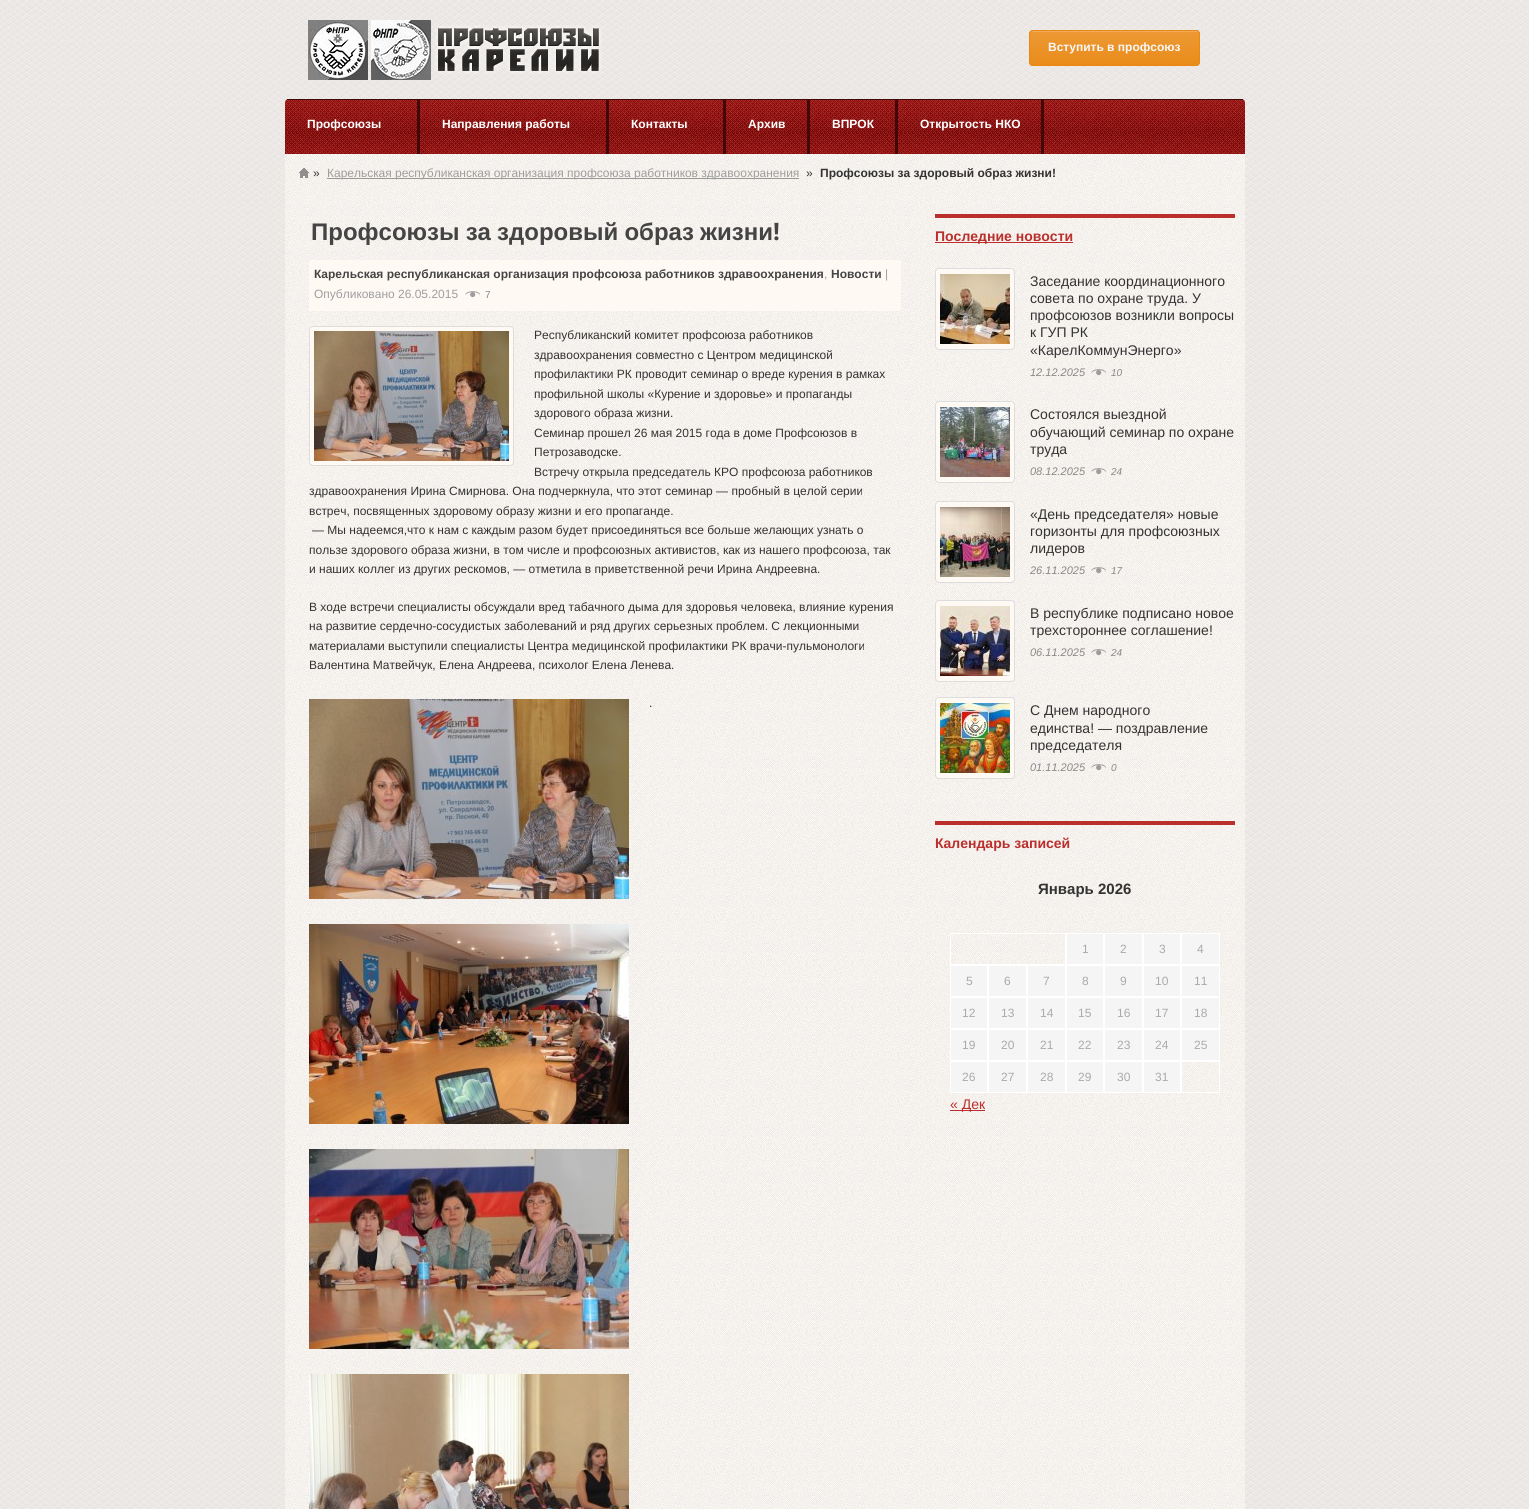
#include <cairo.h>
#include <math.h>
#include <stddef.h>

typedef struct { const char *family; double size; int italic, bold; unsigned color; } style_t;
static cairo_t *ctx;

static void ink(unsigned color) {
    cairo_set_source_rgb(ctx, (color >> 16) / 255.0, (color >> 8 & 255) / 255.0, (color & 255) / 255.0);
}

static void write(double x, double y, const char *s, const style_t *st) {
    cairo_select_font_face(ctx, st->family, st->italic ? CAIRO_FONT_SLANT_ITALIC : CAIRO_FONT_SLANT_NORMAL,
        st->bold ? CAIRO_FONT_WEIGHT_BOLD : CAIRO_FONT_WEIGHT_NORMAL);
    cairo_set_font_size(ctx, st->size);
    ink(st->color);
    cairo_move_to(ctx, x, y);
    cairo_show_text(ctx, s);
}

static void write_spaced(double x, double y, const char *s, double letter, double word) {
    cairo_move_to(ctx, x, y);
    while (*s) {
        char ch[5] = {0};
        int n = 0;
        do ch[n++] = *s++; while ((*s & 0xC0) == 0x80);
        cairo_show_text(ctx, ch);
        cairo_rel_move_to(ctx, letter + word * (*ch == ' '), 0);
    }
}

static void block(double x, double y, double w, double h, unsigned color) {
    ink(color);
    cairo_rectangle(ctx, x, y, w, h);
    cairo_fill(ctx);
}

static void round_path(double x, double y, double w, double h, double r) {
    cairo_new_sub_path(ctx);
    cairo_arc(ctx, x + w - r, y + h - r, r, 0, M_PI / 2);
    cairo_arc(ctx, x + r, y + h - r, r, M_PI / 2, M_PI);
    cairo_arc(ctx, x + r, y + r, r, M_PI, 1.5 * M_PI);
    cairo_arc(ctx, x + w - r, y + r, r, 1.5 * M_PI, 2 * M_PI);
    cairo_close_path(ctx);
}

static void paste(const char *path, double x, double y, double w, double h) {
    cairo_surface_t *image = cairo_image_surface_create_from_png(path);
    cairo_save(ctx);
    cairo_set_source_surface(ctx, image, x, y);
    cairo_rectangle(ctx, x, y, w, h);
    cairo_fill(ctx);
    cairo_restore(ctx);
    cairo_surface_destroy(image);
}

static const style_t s1 = {"Liberation Sans", 12, 0, 1, 0xf8f8f8};
static const style_t s2 = {"Liberation Sans", 12, 0, 1, 0xffffff};
static const style_t s3 = {"Liberation Sans", 12, 0, 0, 0x333333};
static const style_t s4 = {"Liberation Sans", 12, 0, 0, 0x9e9e9e};
static const style_t s5 = {"Liberation Sans", 12, 0, 1, 0x333333};
static const style_t s6 = {"Droid Sans", 24, 0, 1, 0x444444};
static const style_t s7 = {"Liberation Sans", 12, 0, 1, 0x444444};
static const style_t s8 = {"Liberation Sans", 10, 0, 0, 0x888888};
static const style_t s9 = {"Liberation Sans", 14, 0, 1, 0xba2f2c};
static const style_t s10 = {"Liberation Sans", 14, 0, 0, 0x333333};
static const style_t s11 = {"Liberation Sans", 11, 1, 0, 0x888888};
static const style_t s12 = {"Liberation Sans", 10, 1, 0, 0x888888};
static const style_t s13 = {"Liberation Sans", 15, 0, 1, 0x333333};
static const style_t s14 = {"Liberation Sans", 12, 0, 0, 0xaaaaaa};
static const style_t s15 = {"Liberation Sans", 14, 0, 0, 0xba2f2c};

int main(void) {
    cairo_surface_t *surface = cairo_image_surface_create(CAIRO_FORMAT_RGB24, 1529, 1509);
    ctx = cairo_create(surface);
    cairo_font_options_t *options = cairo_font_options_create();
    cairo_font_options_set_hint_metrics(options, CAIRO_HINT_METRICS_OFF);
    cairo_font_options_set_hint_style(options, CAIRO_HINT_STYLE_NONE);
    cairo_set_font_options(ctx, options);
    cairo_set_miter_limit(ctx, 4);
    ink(0xffffff);
    cairo_paint(ctx);
    paste("pic1.png", 0, 0, 1529, 1509);
    paste("pic2.png", 308, 20, 60, 60);
    paste("pic3.png", 371, 20, 60, 60);
    paste("pic4.png", 435, 25, 167, 49);
    ink(0xe98813);
    round_path(1029, 30, 171, 36, 4);
    cairo_fill(ctx);
    paste("pic5.png", 1029, 31, 171, 35);
    round_path(1029.5, 30.5, 170, 35, 3.5);
    cairo_set_line_width(ctx, 1);
    cairo_stroke(ctx);
    write(1048, 51, "Вступить в профсоюз", &s1);
    paste("pic6.png", 285, 99, 960, 55);
    block(287, 99, 956, 1, 0x420808);
    block(417, 100, 3, 54, 0x420808);
    write(307, 128, "Профсоюзы", &s2);
    block(606, 100, 3, 54, 0x420808);
    write(442, 128, "Направления работы", &s2);
    block(723, 100, 3, 54, 0x420808);
    write(631, 128, "Контакты", &s2);
    block(807, 100, 3, 54, 0x420808);
    write(748, 128, "Архив", &s2);
    block(895, 100, 3, 54, 0x420808);
    write(832, 128, "ВПРОК", &s2);
    block(1041, 100, 3, 54, 0x420808);
    write(920, 128, "Открытость НКО", &s2);
    paste("pic7.png", 285, 154, 960, 1355);
    paste("pic8.png", 299, 168, 10, 10);
    write(313, 177, "»", &s3);
    block(327, 178, 472, 1, 0x999999);
    write(327, 177, "Карельская республиканская организация профсоюза работников здравоохранения", &s4);
    write(806, 177, "»", &s3);
    write(820, 177, "Профсоюзы за здоровый образ жизни!", &s5);
    cairo_set_font_size(ctx, 24);
    ink(0x444444);
    write_spaced(311, 240, "Профсоюзы за здоровый образ жизни", 0, -0.5);
    write(773, 240, "!", &s6);
    block(309, 260, 592, 51, 0xfff9f4);
    write(314, 278, "Карельская республиканская организация профсоюза работников здравоохранения", &s7);
    write(824, 278, ",", &s4);
    write(831, 278, "Новости", &s7);
    write(885, 278, "|", &s4);
    write(314, 298, "Опубликовано 26.05.2015", &s4);
    paste("pic9.png", 465, 291, 15, 7);
    write(485, 298, "7", &s8);
    ink(0xfff9f4);
    round_path(309.5, 326.5, 204, 139, 3.5);
    cairo_fill_preserve(ctx);
    ink(0xdddddd);
    cairo_stroke(ctx);
    paste("pic10.png", 314, 331, 195, 130);
    write(534, 339, "Республиканский комитет профсоюза работников", &s3);
    write(534, 359, "здравоохранения совместно с Центром медицинской", &s3);
    write(534, 378, "профилактики РК проводит семинар о вреде курения в рамках", &s3);
    write(534, 398, "профильной школы «Курение и здоровье» и пропаганды", &s3);
    write(534, 417, "здорового образа жизни.", &s3);
    write(534, 437, "Семинар прошел 26 мая 2015 года в доме Профсоюзов в", &s3);
    write(534, 456, "Петрозаводске.", &s3);
    write(534, 476, "Встречу открыла председатель КРО профсоюза работников", &s3);
    write(309, 495, "здравоохранения Ирина Смирнова. Она подчеркнула, что этот семинар — пробный в целой серии", &s3);
    write(309, 515, "встреч, посвященных здоровому образу жизни и его пропаганде.", &s3);
    write(312, 534, "— Мы надеемся,что к нам с каждым разом будет присоединяться все больше желающих узнать о", &s3);
    write(309, 554, "пользе здорового образа жизни, в том числе и профсоюзных активистов, как из нашего профсоюза, так", &s3);
    write(309, 573, "и наших коллег из других рескомов, — отметила в приветственной речи Ирина Андреевна.", &s3);
    write(309, 611, "В ходе встречи специалисты обсуждали вред табачного дыма для здоровья человека, влияние курения", &s3);
    write(309, 630, "на развитие сердечно-сосудистых заболеваний и ряд других серьезных проблем. С лекционными", &s3);
    write(309, 650, "материалами выступили специалисты Центра медицинской профилактики РК врачи-пульмонологи", &s3);
    write(309, 669, "Валентина Матвейчук, Елена Андреева, психолог Елена Ленева.", &s3);
    paste("pic11.png", 309, 699, 320, 200);
    write(649, 707, ".", &s3);
    paste("pic12.png", 309, 924, 320, 200);
    paste("pic13.png", 309, 1149, 320, 200);
    paste("pic14.png", 309, 1374, 320, 135);
    block(935, 214, 300, 4, 0xba2f2c);
    block(935, 242, 138, 1, 0xbe2c30);
    write(935, 241, "Последние новости", &s9);
    ink(0xfff9f4);
    round_path(935.5, 268.5, 79, 81, 3.5);
    cairo_fill_preserve(ctx);
    ink(0xdddddd);
    cairo_stroke(ctx);
    paste("pic15.png", 940, 274, 70, 70);
    write(1030, 286, "Заседание координационного", &s10);
    write(1030, 303, "совета по охране труда. У", &s10);
    write(1030, 320, "профсоюзов возникли вопросы", &s10);
    write(1030, 337, "к ГУП РК", &s10);
    write(1030, 355, "«КарелКоммунЭнерго»", &s10);
    write(1030, 376, "12.12.2025", &s11);
    paste("pic16.png", 1091, 369, 15, 7);
    write(1111, 376, "10", &s12);
    ink(0xfff9f4);
    round_path(935.5, 401.5, 79, 81, 3.5);
    cairo_fill_preserve(ctx);
    ink(0xdddddd);
    cairo_stroke(ctx);
    paste("pic17.png", 940, 407, 70, 70);
    write(1030, 419, "Состоялся выездной", &s10);
    write(1030, 437, "обучающий семинар по охране", &s10);
    write(1030, 454, "труда", &s10);
    write(1030, 475, "08.12.2025", &s11);
    paste("pic18.png", 1091, 468, 15, 7);
    write(1111, 475, "24", &s12);
    ink(0xfff9f4);
    round_path(935.5, 501.5, 79, 81, 3.5);
    cairo_fill_preserve(ctx);
    ink(0xdddddd);
    cairo_stroke(ctx);
    paste("pic19.png", 940, 507, 70, 70);
    write(1030, 519, "«День председателя» новые", &s10);
    write(1030, 536, "горизонты для профсоюзных", &s10);
    write(1030, 553, "лидеров", &s10);
    write(1030, 574, "26.11.2025", &s11);
    paste("pic20.png", 1091, 567, 15, 7);
    write(1111, 574, "17", &s12);
    ink(0xfff9f4);
    round_path(935.5, 600.5, 79, 81, 3.5);
    cairo_fill_preserve(ctx);
    ink(0xdddddd);
    cairo_stroke(ctx);
    paste("pic21.png", 940, 606, 70, 70);
    write(1030, 618, "В республике подписано новое", &s10);
    write(1030, 635, "трехстороннее соглашение!", &s10);
    write(1030, 656, "06.11.2025", &s11);
    paste("pic22.png", 1091, 649, 15, 7);
    write(1111, 656, "24", &s12);
    ink(0xfff9f4);
    round_path(935.5, 697.5, 79, 81, 3.5);
    cairo_fill_preserve(ctx);
    ink(0xdddddd);
    cairo_stroke(ctx);
    paste("pic23.png", 940, 703, 70, 70);
    write(1030, 715, "С Днем народного", &s10);
    write(1030, 733, "единства! — поздравление", &s10);
    write(1030, 750, "председателя", &s10);
    write(1030, 771, "01.11.2025", &s11);
    paste("pic24.png", 1091, 764, 15, 7);
    write(1111, 771, "0", &s12);
    block(935, 821, 300, 4, 0xba2f2c);
    write(935, 848, "Календарь записей", &s9);
    write(1038, 894, "Январь 2026", &s13);
    cairo_rectangle(ctx, 950.5, 933.5, 115, 31);
    ink(0xffffff);
    cairo_stroke(ctx);
    ink(0xf5f5f5);
    cairo_rectangle(ctx, 1066.5, 933.5, 37, 31);
    cairo_fill_preserve(ctx);
    ink(0xffffff);
    cairo_stroke(ctx);
    write(1082, 953, "1", &s14);
    ink(0xf5f5f5);
    cairo_rectangle(ctx, 1104.5, 933.5, 38, 31);
    cairo_fill_preserve(ctx);
    ink(0xffffff);
    cairo_stroke(ctx);
    write(1120, 953, "2", &s14);
    ink(0xf5f5f5);
    cairo_rectangle(ctx, 1143.5, 933.5, 37, 31);
    cairo_fill_preserve(ctx);
    ink(0xffffff);
    cairo_stroke(ctx);
    write(1159, 953, "3", &s14);
    ink(0xf5f5f5);
    cairo_rectangle(ctx, 1181.5, 933.5, 38, 31);
    cairo_fill_preserve(ctx);
    ink(0xffffff);
    cairo_stroke(ctx);
    write(1197, 953, "4", &s14);
    ink(0xf5f5f5);
    cairo_rectangle(ctx, 950.5, 965.5, 37, 31);
    cairo_fill_preserve(ctx);
    ink(0xffffff);
    cairo_stroke(ctx);
    write(966, 985, "5", &s14);
    ink(0xf5f5f5);
    cairo_rectangle(ctx, 988.5, 965.5, 38, 31);
    cairo_fill_preserve(ctx);
    ink(0xffffff);
    cairo_stroke(ctx);
    write(1004, 985, "6", &s14);
    ink(0xf5f5f5);
    cairo_rectangle(ctx, 1027.5, 965.5, 38, 31);
    cairo_fill_preserve(ctx);
    ink(0xffffff);
    cairo_stroke(ctx);
    write(1043, 985, "7", &s14);
    ink(0xf5f5f5);
    cairo_rectangle(ctx, 1066.5, 965.5, 37, 31);
    cairo_fill_preserve(ctx);
    ink(0xffffff);
    cairo_stroke(ctx);
    write(1082, 985, "8", &s14);
    ink(0xf5f5f5);
    cairo_rectangle(ctx, 1104.5, 965.5, 38, 31);
    cairo_fill_preserve(ctx);
    ink(0xffffff);
    cairo_stroke(ctx);
    write(1120, 985, "9", &s14);
    ink(0xf5f5f5);
    cairo_rectangle(ctx, 1143.5, 965.5, 37, 31);
    cairo_fill_preserve(ctx);
    ink(0xffffff);
    cairo_stroke(ctx);
    write(1155, 985, "10", &s14);
    ink(0xf5f5f5);
    cairo_rectangle(ctx, 1181.5, 965.5, 38, 31);
    cairo_fill_preserve(ctx);
    ink(0xffffff);
    cairo_stroke(ctx);
    write(1194, 985, "11", &s14);
    ink(0xf5f5f5);
    cairo_rectangle(ctx, 950.5, 997.5, 37, 31);
    cairo_fill_preserve(ctx);
    ink(0xffffff);
    cairo_stroke(ctx);
    write(962, 1017, "12", &s14);
    ink(0xf5f5f5);
    cairo_rectangle(ctx, 988.5, 997.5, 38, 31);
    cairo_fill_preserve(ctx);
    ink(0xffffff);
    cairo_stroke(ctx);
    write(1001, 1017, "13", &s14);
    ink(0xf5f5f5);
    cairo_rectangle(ctx, 1027.5, 997.5, 38, 31);
    cairo_fill_preserve(ctx);
    ink(0xffffff);
    cairo_stroke(ctx);
    write(1040, 1017, "14", &s14);
    ink(0xf5f5f5);
    cairo_rectangle(ctx, 1066.5, 997.5, 37, 31);
    cairo_fill_preserve(ctx);
    ink(0xffffff);
    cairo_stroke(ctx);
    write(1078, 1017, "15", &s14);
    ink(0xf5f5f5);
    cairo_rectangle(ctx, 1104.5, 997.5, 38, 31);
    cairo_fill_preserve(ctx);
    ink(0xffffff);
    cairo_stroke(ctx);
    write(1117, 1017, "16", &s14);
    ink(0xf5f5f5);
    cairo_rectangle(ctx, 1143.5, 997.5, 37, 31);
    cairo_fill_preserve(ctx);
    ink(0xffffff);
    cairo_stroke(ctx);
    write(1155, 1017, "17", &s14);
    ink(0xf5f5f5);
    cairo_rectangle(ctx, 1181.5, 997.5, 38, 31);
    cairo_fill_preserve(ctx);
    ink(0xffffff);
    cairo_stroke(ctx);
    write(1194, 1017, "18", &s14);
    ink(0xf5f5f5);
    cairo_rectangle(ctx, 950.5, 1029.5, 37, 31);
    cairo_fill_preserve(ctx);
    ink(0xffffff);
    cairo_stroke(ctx);
    write(962, 1049, "19", &s14);
    ink(0xf5f5f5);
    cairo_rectangle(ctx, 988.5, 1029.5, 38, 31);
    cairo_fill_preserve(ctx);
    ink(0xffffff);
    cairo_stroke(ctx);
    write(1001, 1049, "20", &s14);
    ink(0xf5f5f5);
    cairo_rectangle(ctx, 1027.5, 1029.5, 38, 31);
    cairo_fill_preserve(ctx);
    ink(0xffffff);
    cairo_stroke(ctx);
    write(1040, 1049, "21", &s14);
    ink(0xf5f5f5);
    cairo_rectangle(ctx, 1066.5, 1029.5, 37, 31);
    cairo_fill_preserve(ctx);
    ink(0xffffff);
    cairo_stroke(ctx);
    write(1078, 1049, "22", &s14);
    ink(0xf5f5f5);
    cairo_rectangle(ctx, 1104.5, 1029.5, 38, 31);
    cairo_fill_preserve(ctx);
    ink(0xffffff);
    cairo_stroke(ctx);
    write(1117, 1049, "23", &s14);
    ink(0xf5f5f5);
    cairo_rectangle(ctx, 1143.5, 1029.5, 37, 31);
    cairo_fill_preserve(ctx);
    ink(0xffffff);
    cairo_stroke(ctx);
    write(1155, 1049, "24", &s14);
    ink(0xf5f5f5);
    cairo_rectangle(ctx, 1181.5, 1029.5, 38, 31);
    cairo_fill_preserve(ctx);
    ink(0xffffff);
    cairo_stroke(ctx);
    write(1194, 1049, "25", &s14);
    ink(0xf5f5f5);
    cairo_rectangle(ctx, 950.5, 1061.5, 37, 31);
    cairo_fill_preserve(ctx);
    ink(0xffffff);
    cairo_stroke(ctx);
    write(962, 1081, "26", &s14);
    ink(0xf5f5f5);
    cairo_rectangle(ctx, 988.5, 1061.5, 38, 31);
    cairo_fill_preserve(ctx);
    ink(0xffffff);
    cairo_stroke(ctx);
    write(1001, 1081, "27", &s14);
    ink(0xf5f5f5);
    cairo_rectangle(ctx, 1027.5, 1061.5, 38, 31);
    cairo_fill_preserve(ctx);
    ink(0xffffff);
    cairo_stroke(ctx);
    write(1040, 1081, "28", &s14);
    ink(0xf5f5f5);
    cairo_rectangle(ctx, 1066.5, 1061.5, 37, 31);
    cairo_fill_preserve(ctx);
    ink(0xffffff);
    cairo_stroke(ctx);
    write(1078, 1081, "29", &s14);
    ink(0xf5f5f5);
    cairo_rectangle(ctx, 1104.5, 1061.5, 38, 31);
    cairo_fill_preserve(ctx);
    ink(0xffffff);
    cairo_stroke(ctx);
    write(1117, 1081, "30", &s14);
    ink(0xf5f5f5);
    cairo_rectangle(ctx, 1143.5, 1061.5, 37, 31);
    cairo_fill_preserve(ctx);
    ink(0xffffff);
    cairo_stroke(ctx);
    write(1155, 1081, "31", &s14);
    cairo_rectangle(ctx, 1181.5, 1061.5, 38, 31);
    ink(0xffffff);
    cairo_stroke(ctx);
    block(950, 1110, 35, 1, 0xbe2c30);
    write(950, 1109, "« Дек", &s15);
    cairo_surface_write_to_png(surface, "screenshot.png");
    cairo_font_options_destroy(options);
    cairo_destroy(ctx);
    cairo_surface_destroy(surface);
    return 0;
}
